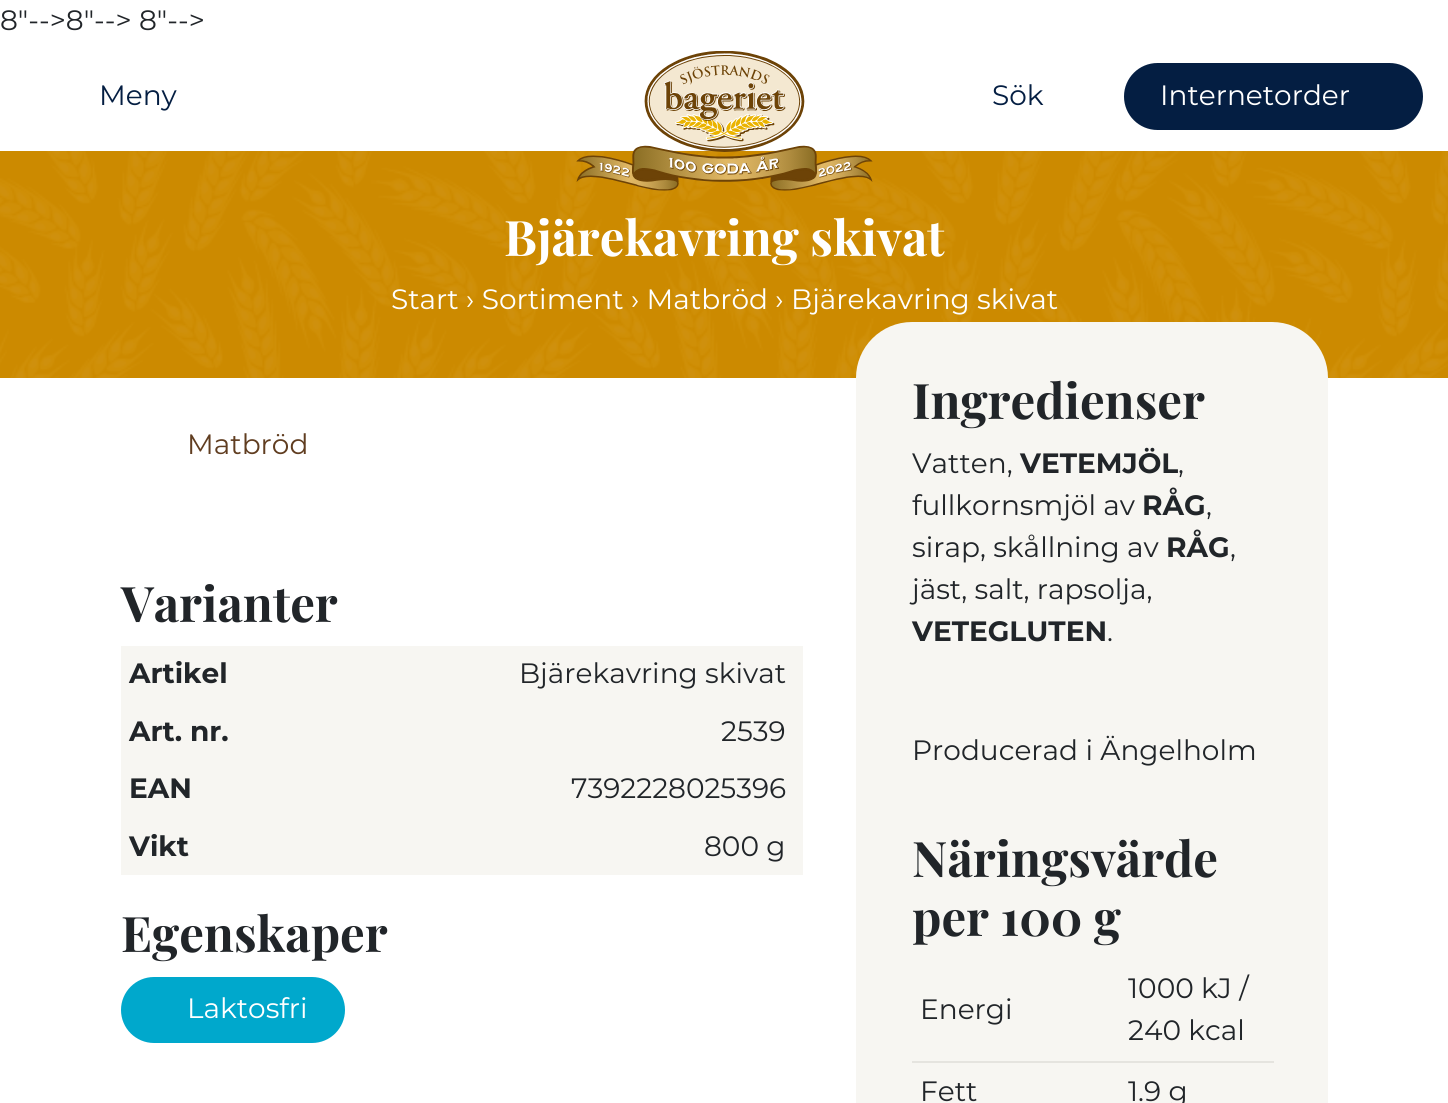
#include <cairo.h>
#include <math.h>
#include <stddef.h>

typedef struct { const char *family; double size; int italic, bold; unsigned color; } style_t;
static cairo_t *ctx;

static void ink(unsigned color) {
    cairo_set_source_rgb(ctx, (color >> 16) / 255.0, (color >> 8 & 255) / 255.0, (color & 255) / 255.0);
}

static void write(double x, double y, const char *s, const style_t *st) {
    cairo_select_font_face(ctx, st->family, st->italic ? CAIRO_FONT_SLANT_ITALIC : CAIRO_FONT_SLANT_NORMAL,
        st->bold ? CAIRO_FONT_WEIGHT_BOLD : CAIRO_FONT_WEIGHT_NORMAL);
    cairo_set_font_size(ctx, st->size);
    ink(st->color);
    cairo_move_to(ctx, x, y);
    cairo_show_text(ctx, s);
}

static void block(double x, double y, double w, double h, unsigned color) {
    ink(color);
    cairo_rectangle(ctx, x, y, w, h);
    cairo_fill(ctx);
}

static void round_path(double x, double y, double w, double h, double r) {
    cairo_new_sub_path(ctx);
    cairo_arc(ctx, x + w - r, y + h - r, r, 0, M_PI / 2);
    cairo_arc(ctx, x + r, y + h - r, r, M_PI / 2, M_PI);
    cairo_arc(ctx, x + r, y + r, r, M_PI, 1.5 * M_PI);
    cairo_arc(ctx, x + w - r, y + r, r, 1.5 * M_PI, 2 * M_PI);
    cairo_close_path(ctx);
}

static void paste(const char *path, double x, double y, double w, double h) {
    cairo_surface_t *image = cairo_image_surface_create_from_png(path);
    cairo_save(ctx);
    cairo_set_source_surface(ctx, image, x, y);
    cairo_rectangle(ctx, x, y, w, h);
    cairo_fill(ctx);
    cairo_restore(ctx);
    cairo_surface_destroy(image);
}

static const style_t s1 = {"Montserrat", 28, 0, 0, 0x212529};
static const style_t s2 = {"Montserrat", 28, 0, 0, 0x041e42};
static const style_t s3 = {"Montserrat", 28, 0, 0, 0xffffff};
static const style_t s4 = {"Playfair Display", 49, 0, 1, 0xffffff};
static const style_t s5 = {"Montserrat", 28, 0, 0, 0x603d20};
static const style_t s6 = {"Playfair Display", 49, 0, 1, 0x212529};
static const style_t s7 = {"Montserrat", 28, 0, 1, 0x212529};

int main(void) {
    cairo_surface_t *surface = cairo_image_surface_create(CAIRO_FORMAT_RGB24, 1448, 1103);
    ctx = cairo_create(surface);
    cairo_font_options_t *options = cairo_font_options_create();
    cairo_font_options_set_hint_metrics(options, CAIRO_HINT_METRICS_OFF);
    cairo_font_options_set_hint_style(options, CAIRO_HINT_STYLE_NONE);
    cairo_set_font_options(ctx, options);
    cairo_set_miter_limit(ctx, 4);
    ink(0xffffff);
    cairo_paint(ctx);
    write(0, 30, "8\"-->8\"--> 8\"-->", &s1);
    write(99, 105, "Meny", &s2);
    paste("pic2.png", 0, 151, 1448, 227);
    paste("pic1.png", 576, 51, 297, 140);
    write(992, 105, "Sök", &s2);
    round_path(1125, 64, 297, 65, 32.5);
    cairo_fill_preserve(ctx);
    cairo_stroke(ctx);
    write(1160, 105, "Internetorder", &s3);
    write(504, 256, "Bjärekavring skivat", &s4);
    write(391, 309, "Start › Sortiment › Matbröd › Bjärekavring skivat", &s3);
    write(187, 454, "Matbröd", &s5);
    write(121, 622, "Varianter", &s6);
    block(121, 646, 682, 229, 0xf7f6f2);
    write(129, 683, "Artikel", &s7);
    write(519, 683, "Bjärekavring skivat", &s1);
    write(129, 741, "Art. nr.", &s7);
    write(721, 741, "2539", &s1);
    write(129, 798, "EAN", &s7);
    write(571, 798, "7392228025396", &s1);
    write(129, 856, "Vikt", &s7);
    write(704, 856, "800 g", &s1);
    write(121, 952, "Egenskaper", &s6);
    ink(0x00a8cc);
    round_path(122, 978, 222, 64, 32);
    cairo_fill_preserve(ctx);
    cairo_stroke(ctx);
    write(187, 1018, "Laktosfri", &s3);
    ink(0xf7f6f2);
    round_path(856, 322, 472, 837, 56);
    cairo_fill(ctx);
    write(912, 419, "Ingredienser", &s6);
    write(912, 473, "Vatten,", &s1);
    write(1020, 473, "VETEMJÖL", &s7);
    write(1178, 473, ",", &s1);
    write(912, 515, "fullkornsmjöl av", &s1);
    write(1142, 515, "RÅG", &s7);
    write(1206, 515, ",", &s1);
    write(912, 557, "sirap, skållning av", &s1);
    write(1166, 557, "RÅG", &s7);
    write(1230, 557, ",", &s1);
    write(912, 599, "jäst, salt, rapsolja,", &s1);
    write(912, 641, "VETEGLUTEN", &s7);
    write(1107, 641, ".", &s1);
    write(912, 760, "Producerad i Ängelholm", &s1);
    write(912, 877, "Näringsvärde", &s6);
    write(912, 936, "per 100 g", &s6);
    write(920, 1019, "Energi", &s1);
    write(1128, 998, "1000 kJ /", &s1);
    write(1128, 1040, "240 kcal", &s1);
    write(920, 1101, "Fett", &s1);
    block(912, 1061, 362, 2, 0xe5e4df);
    write(1128, 1101, "1.9 g", &s1);
    cairo_surface_write_to_png(surface, "screenshot.png");
    cairo_font_options_destroy(options);
    cairo_destroy(ctx);
    cairo_surface_destroy(surface);
    return 0;
}
